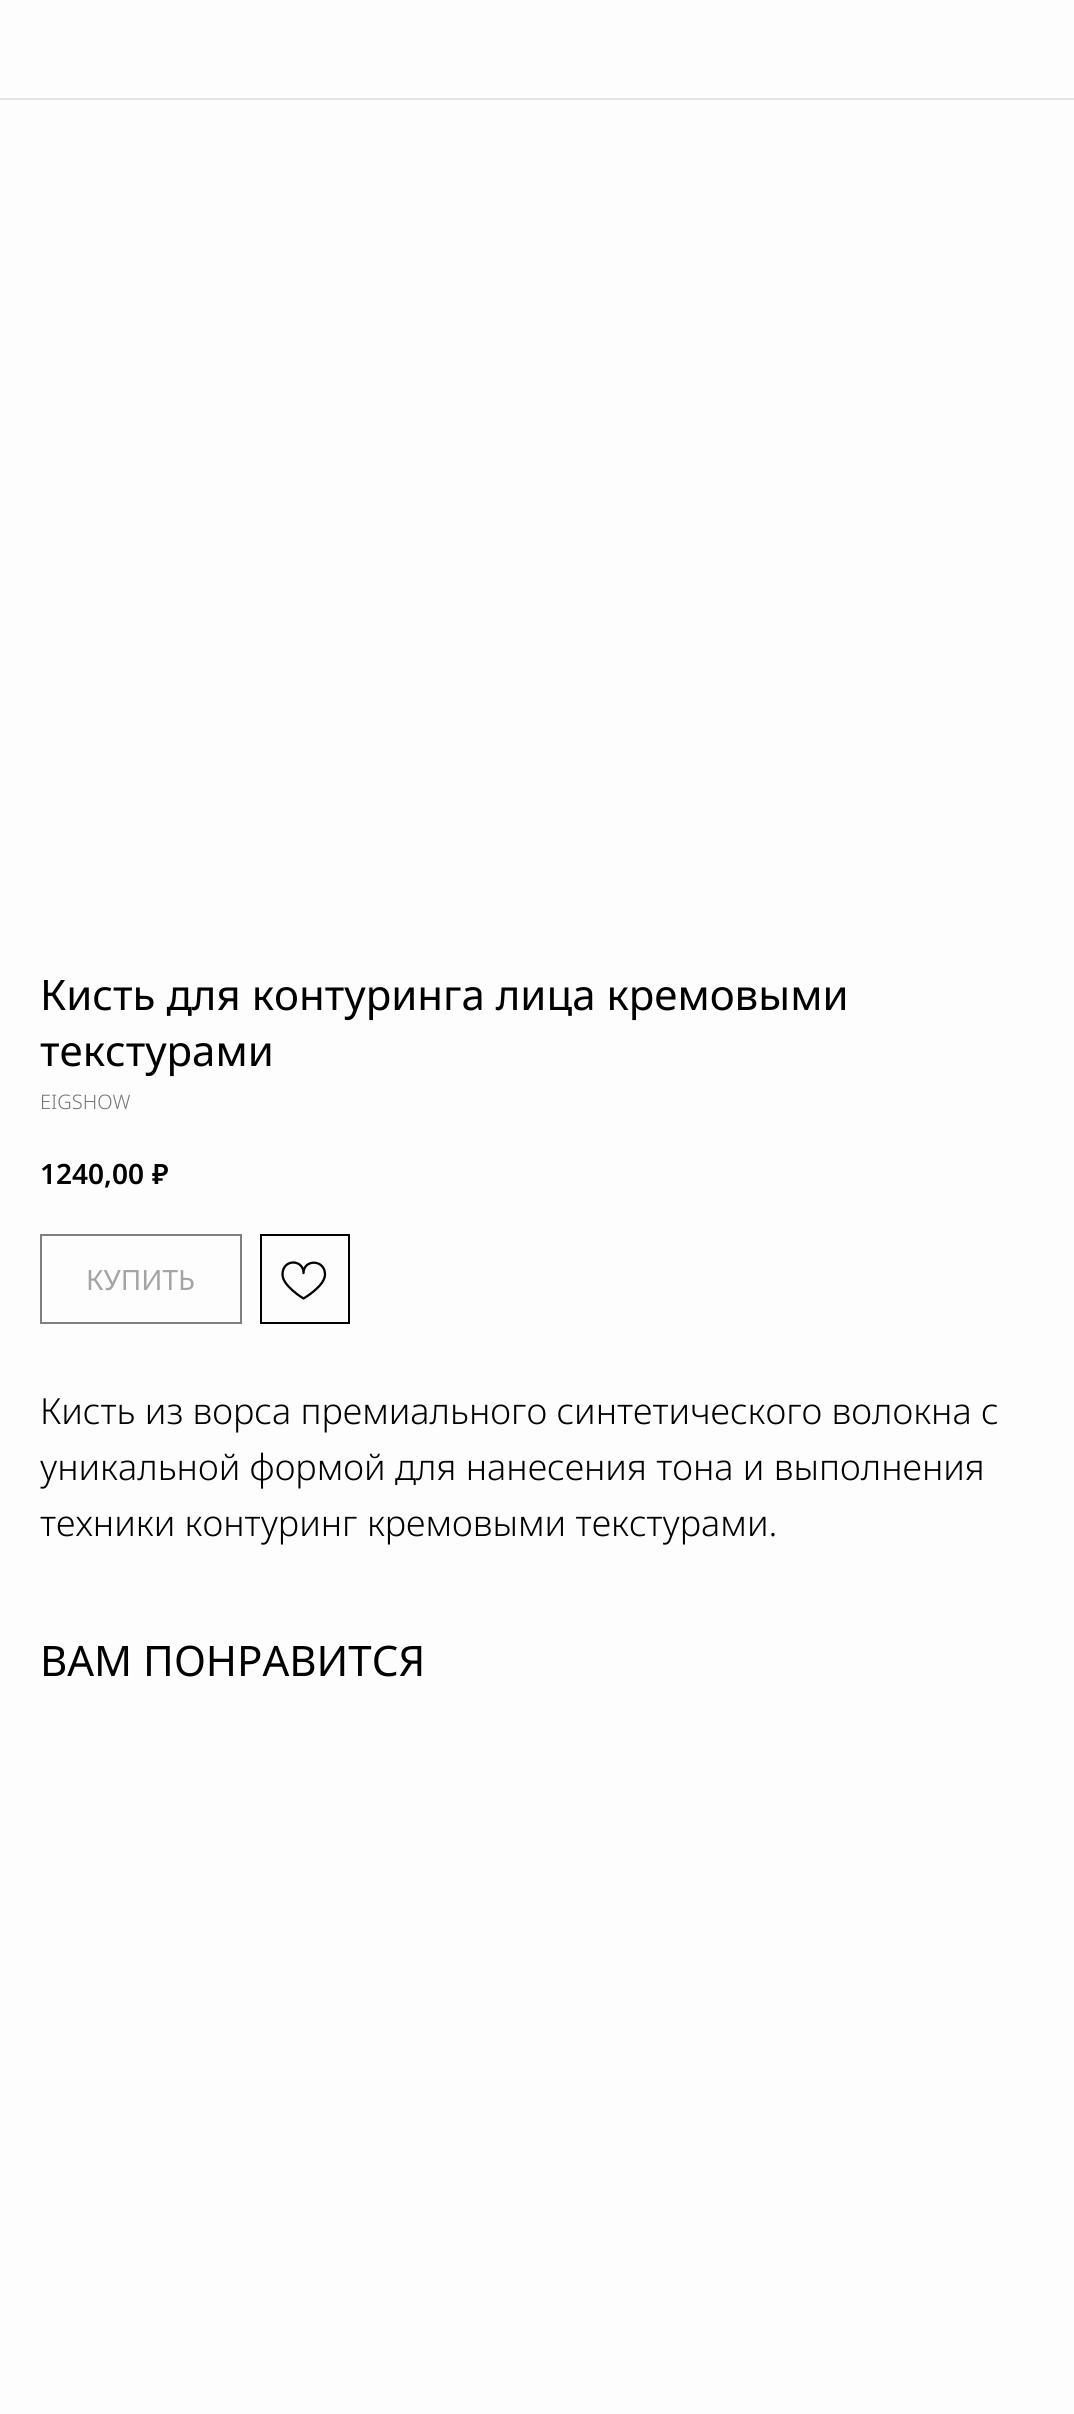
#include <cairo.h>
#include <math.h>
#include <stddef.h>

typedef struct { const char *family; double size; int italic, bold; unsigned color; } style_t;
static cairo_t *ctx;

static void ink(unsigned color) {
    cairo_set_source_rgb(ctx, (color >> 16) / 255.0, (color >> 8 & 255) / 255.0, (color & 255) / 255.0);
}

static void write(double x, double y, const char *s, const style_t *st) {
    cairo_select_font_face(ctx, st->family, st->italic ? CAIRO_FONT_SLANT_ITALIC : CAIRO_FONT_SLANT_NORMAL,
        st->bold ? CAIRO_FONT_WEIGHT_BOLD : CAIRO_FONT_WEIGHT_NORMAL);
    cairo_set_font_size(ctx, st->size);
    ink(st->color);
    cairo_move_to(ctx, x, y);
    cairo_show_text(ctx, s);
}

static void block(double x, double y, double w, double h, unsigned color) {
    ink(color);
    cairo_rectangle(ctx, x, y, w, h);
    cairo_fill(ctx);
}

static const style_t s1 = {"Noto Sans", 42, 0, 0, 0x000000};
static const style_t s2 = {"Noto Sans Light", 20, 0, 0, 0x777777};
static const style_t s3 = {"Noto Sans SemiBold", 28, 0, 0, 0x000000};
static const style_t s4 = {"Noto Sans", 28, 0, 0, 0xa4a4a5};
static const style_t s5 = {"Noto Sans Light", 36, 0, 0, 0x000000};

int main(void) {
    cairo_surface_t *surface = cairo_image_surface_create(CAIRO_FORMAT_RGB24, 1074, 2414);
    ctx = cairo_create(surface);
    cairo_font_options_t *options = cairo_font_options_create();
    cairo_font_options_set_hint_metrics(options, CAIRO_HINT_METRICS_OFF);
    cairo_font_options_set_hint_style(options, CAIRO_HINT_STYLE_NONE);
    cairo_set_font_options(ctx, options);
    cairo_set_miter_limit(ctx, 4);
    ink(0xfdfdfe);
    cairo_paint(ctx);
    block(0, 98, 1074, 2, 0xe4e4e5);
    write(40, 1010, "Кисть для контуринга лица кремовыми", &s1);
    write(40, 1066, "текстурами", &s1);
    write(40, 1109, "EIGSHOW", &s2);
    write(40, 1184, "1240,00", &s3);
    write(152, 1184, "₽", &s3);
    cairo_rectangle(ctx, 41, 1235, 200, 88);
    ink(0x7f7f7f);
    cairo_stroke(ctx);
    write(86, 1290, "КУПИТЬ", &s4);
    cairo_rectangle(ctx, 261, 1235, 88, 88);
    ink(0x000000);
    cairo_stroke(ctx);
    cairo_new_path(ctx);
    cairo_move_to(ctx, 325, 1274.5);
    cairo_curve_to(ctx, 325, 1286, 303.5, 1298.5, 303.5, 1298.5);
    cairo_curve_to(ctx, 303.5, 1298.5, 282.5, 1286, 282.5, 1274.5);
    cairo_curve_to(ctx, 282.5, 1258.5, 303.5, 1259, 303.5, 1273);
    cairo_curve_to(ctx, 303.5, 1259, 325, 1259, 325, 1274.5);
    cairo_close_path(ctx);
    cairo_set_line_width(ctx, 2.3);
    cairo_set_line_join(ctx, CAIRO_LINE_JOIN_ROUND);
    cairo_stroke(ctx);
    write(40, 1424, "Кисть из ворса премиального синтетического волокна с", &s5);
    write(40, 1480, "уникальной формой для нанесения тона и выполнения", &s5);
    write(40, 1536, "техники контуринг кремовыми текстурами.", &s5);
    write(40, 1676, "ВАМ ПОНРАВИТСЯ", &s1);
    cairo_surface_write_to_png(surface, "screenshot.png");
    cairo_font_options_destroy(options);
    cairo_destroy(ctx);
    cairo_surface_destroy(surface);
    return 0;
}
